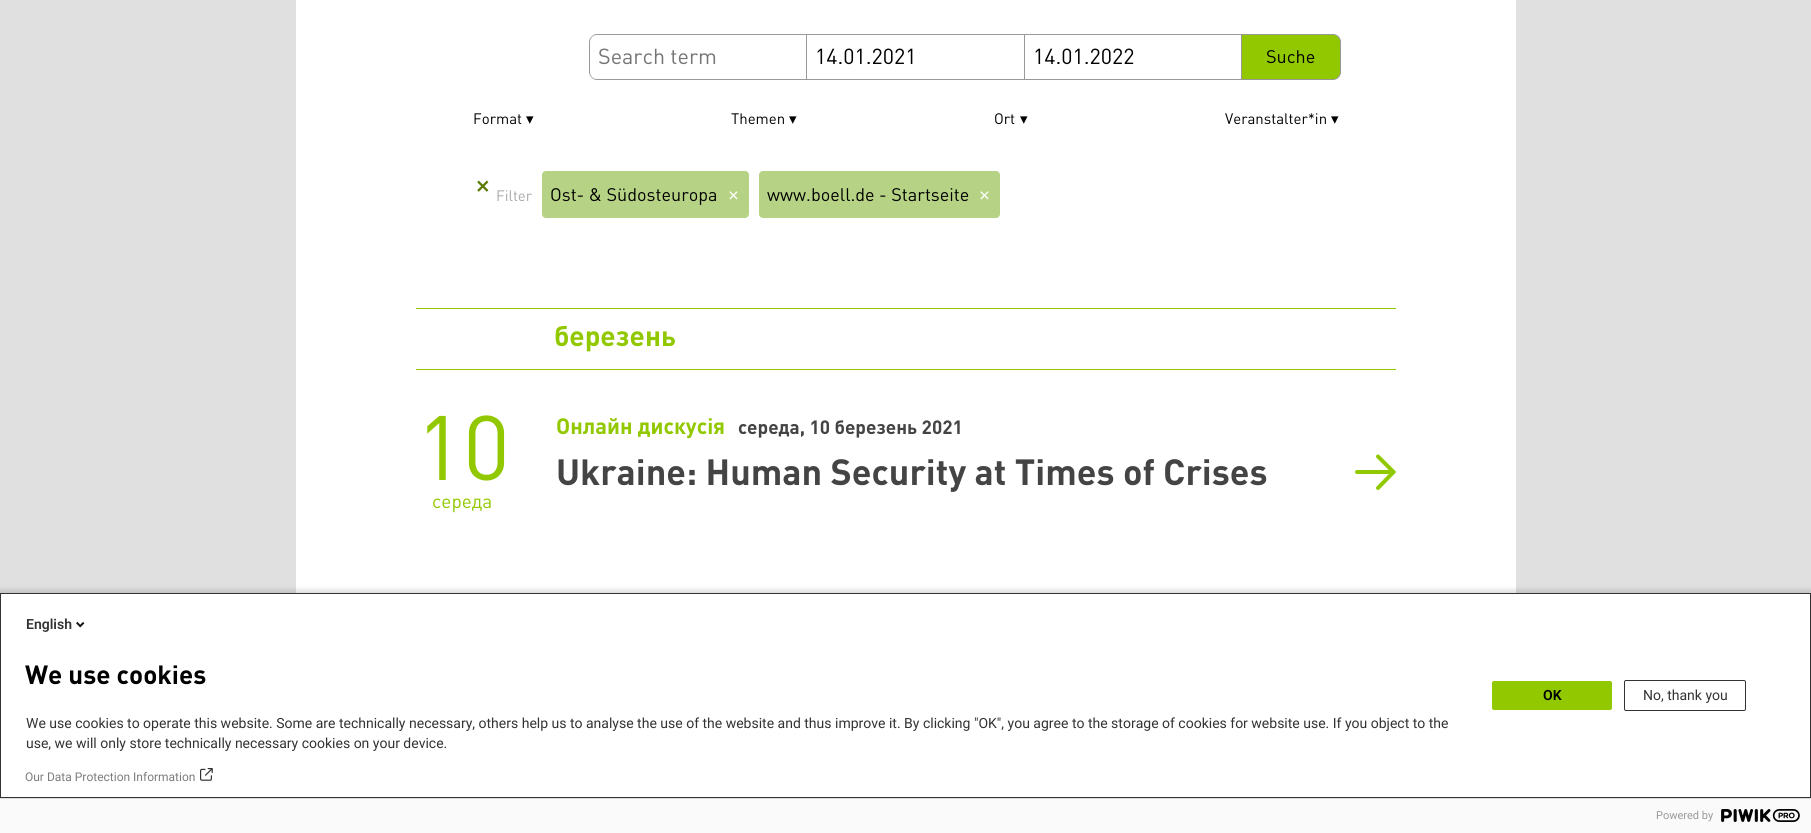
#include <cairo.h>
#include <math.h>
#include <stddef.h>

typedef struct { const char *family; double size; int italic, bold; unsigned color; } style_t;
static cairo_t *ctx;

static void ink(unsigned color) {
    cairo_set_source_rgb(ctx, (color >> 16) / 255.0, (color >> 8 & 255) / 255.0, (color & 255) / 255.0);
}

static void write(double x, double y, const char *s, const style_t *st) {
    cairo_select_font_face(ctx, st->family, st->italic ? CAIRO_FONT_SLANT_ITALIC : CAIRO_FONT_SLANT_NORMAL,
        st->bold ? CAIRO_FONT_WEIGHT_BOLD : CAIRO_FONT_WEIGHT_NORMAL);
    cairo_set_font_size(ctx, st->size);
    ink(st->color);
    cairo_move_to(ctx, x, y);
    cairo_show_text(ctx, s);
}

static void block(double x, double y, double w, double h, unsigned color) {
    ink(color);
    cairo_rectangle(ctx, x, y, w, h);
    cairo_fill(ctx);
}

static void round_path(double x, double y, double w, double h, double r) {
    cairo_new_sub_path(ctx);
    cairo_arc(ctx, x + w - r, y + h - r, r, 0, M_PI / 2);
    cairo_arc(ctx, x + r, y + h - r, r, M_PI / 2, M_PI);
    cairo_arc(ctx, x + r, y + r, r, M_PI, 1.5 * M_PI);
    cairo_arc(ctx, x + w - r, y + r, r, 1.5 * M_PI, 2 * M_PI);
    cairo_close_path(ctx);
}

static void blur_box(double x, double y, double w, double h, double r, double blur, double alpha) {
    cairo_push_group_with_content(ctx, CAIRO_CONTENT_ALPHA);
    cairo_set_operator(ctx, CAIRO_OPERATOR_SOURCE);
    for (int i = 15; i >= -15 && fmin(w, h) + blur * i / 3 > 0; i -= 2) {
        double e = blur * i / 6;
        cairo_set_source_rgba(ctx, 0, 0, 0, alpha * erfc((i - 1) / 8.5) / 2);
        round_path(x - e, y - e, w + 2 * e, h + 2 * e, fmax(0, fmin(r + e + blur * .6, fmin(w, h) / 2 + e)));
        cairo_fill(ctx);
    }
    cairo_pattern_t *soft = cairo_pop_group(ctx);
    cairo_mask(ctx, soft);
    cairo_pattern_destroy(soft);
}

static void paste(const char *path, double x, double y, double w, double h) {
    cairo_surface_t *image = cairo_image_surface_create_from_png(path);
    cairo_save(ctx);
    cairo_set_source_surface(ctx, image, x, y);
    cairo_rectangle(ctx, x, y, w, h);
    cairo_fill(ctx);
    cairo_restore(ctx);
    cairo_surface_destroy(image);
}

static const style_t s1 = {"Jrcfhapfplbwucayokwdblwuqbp", 21.5, 0, 0, 0x757575};
static const style_t s2 = {"Jrcfhapfplbwucayokwdblwuqbp", 21.5, 0, 0, 0x000000};
static const style_t s3 = {"Jrcfhapfplbwucayokwdblwuqbp", 18, 0, 0, 0x000000};
static const style_t s4 = {"Jrcfhapfplbwucayokwdblwuqbp", 15, 0, 0, 0x000000};
static const style_t s5 = {"DejaVu Sans", 15, 0, 0, 0x000000};
static const style_t s6 = {"DejaVu Sans", 18, 0, 1, 0x5b7a01};
static const style_t s7 = {"Jrcfhapfplbwucayokwdblwuqbp", 15, 0, 0, 0xa9a9a9};
static const style_t s8 = {"Jrcfhapfplbwucayokwdblwuqbp", 21, 0, 0, 0xffffff};
static const style_t s9 = {"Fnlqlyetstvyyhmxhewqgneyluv", 28, 0, 1, 0x91c800};
static const style_t s10 = {"Jrcfhapfplbwucayokwdblwuqbp", 90, 0, 0, 0x91c800};
static const style_t s11 = {"Jrcfhapfplbwucayokwdblwuqbp", 19, 0, 0, 0x91c800};
static const style_t s12 = {"Fnlqlyetstvyyhmxhewqgneyluv", 22, 0, 1, 0x91c800};
static const style_t s13 = {"Fnlqlyetstvyyhmxhewqgneyluv", 19, 0, 1, 0x444444};
static const style_t s14 = {"Fnlqlyetstvyyhmxhewqgneyluv", 36, 0, 1, 0x444444};
static const style_t s15 = {"Roboto SemiBold", 14, 0, 0, 0x333333};
static const style_t s16 = {"Fnlqlyetstvyyhmxhewqgneyluv", 26, 0, 1, 0x000000};
static const style_t s17 = {"Roboto", 14, 0, 0, 0x333333};
static const style_t s18 = {"Roboto", 12, 0, 0, 0x7c7c7c};
static const style_t s19 = {"Roboto SemiBold", 14, 0, 0, 0x000000};
static const style_t s20 = {"Roboto", 11, 0, 0, 0x999999};

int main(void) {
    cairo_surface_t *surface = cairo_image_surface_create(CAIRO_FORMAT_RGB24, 1811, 833);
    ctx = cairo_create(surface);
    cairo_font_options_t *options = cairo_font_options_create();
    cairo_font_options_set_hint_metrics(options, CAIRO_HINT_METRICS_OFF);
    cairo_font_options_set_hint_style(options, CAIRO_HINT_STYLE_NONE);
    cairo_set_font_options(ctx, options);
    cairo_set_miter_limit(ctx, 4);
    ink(0xe0e0e0);
    cairo_paint(ctx);
    block(296, 0, 1220, 593, 0xffffff);
    ink(0x999999);
    cairo_set_fill_rule(ctx, CAIRO_FILL_RULE_EVEN_ODD);
    cairo_new_path(ctx);
    cairo_move_to(ctx, 597, 34);
    cairo_line_to(ctx, 806, 34);
    cairo_line_to(ctx, 806, 80);
    cairo_line_to(ctx, 597, 80);
    cairo_curve_to(ctx, 593, 80, 589, 76, 589, 72);
    cairo_line_to(ctx, 589, 42);
    cairo_curve_to(ctx, 589, 38, 593, 34, 597, 34);
    cairo_close_path(ctx);
    cairo_move_to(ctx, 597, 35);
    cairo_line_to(ctx, 806, 35);
    cairo_line_to(ctx, 806, 79);
    cairo_line_to(ctx, 597, 79);
    cairo_curve_to(ctx, 593, 79, 590, 76, 590, 72);
    cairo_line_to(ctx, 590, 42);
    cairo_curve_to(ctx, 590, 38, 593, 35, 597, 35);
    cairo_close_path(ctx);
    cairo_fill(ctx);
    write(598, 64, "Search term", &s1);
    block(806, 34, 435, 1, 0x999999);
    block(806, 79, 435, 1, 0x999999);
    block(806, 34, 1, 46, 0x999999);
    write(815, 64, "14.01.2021", &s2);
    block(1024, 34, 1, 46, 0x999999);
    write(1033, 64, "14.01.2022", &s2);
    ink(0x91c800);
    cairo_new_path(ctx);
    cairo_move_to(ctx, 1241.5, 34.5);
    cairo_line_to(ctx, 1333, 34.5);
    cairo_curve_to(ctx, 1337, 34.5, 1340.5, 38, 1340.5, 42);
    cairo_line_to(ctx, 1340.5, 72);
    cairo_curve_to(ctx, 1340.5, 76, 1337, 79.5, 1333, 79.5);
    cairo_line_to(ctx, 1241.5, 79.5);
    cairo_close_path(ctx);
    cairo_fill_preserve(ctx);
    ink(0x999999);
    cairo_set_line_width(ctx, 1);
    cairo_stroke(ctx);
    write(1266, 63, "Suche", &s3);
    write(473, 124, "Format", &s4);
    write(526, 124, "▾", &s5);
    write(731, 124, "Themen", &s4);
    write(789, 124, "▾", &s5);
    write(994, 124, "Ort", &s4);
    write(1020, 124, "▾", &s5);
    write(1225, 124, "Veranstalter*in", &s4);
    write(1331, 124, "▾", &s5);
    write(475, 193, "✕", &s6);
    write(496, 201, "Filter", &s7);
    ink(0xb6d284);
    round_path(542, 171, 207, 47, 4);
    cairo_fill(ctx);
    write(550, 201, "Ost- & Südosteuropa", &s3);
    write(728, 201, "×", &s8);
    ink(0xb6d284);
    round_path(759, 171, 241, 47, 4);
    cairo_fill(ctx);
    write(767, 201, "www.boell.de - Startseite", &s3);
    write(979, 201, "×", &s8);
    block(416, 308, 980, 1, 0x91c800);
    block(416, 369, 980, 1, 0x91c800);
    write(554, 346, "березень", &s9);
    write(416, 480, "10", &s10);
    write(432, 508, "середа", &s11);
    write(556, 434, "Онлайн дискусія", &s12);
    write(738, 434, "середа, 10 березень 2021", &s13);
    write(556, 485, "Ukraine: Human Security at Times of Crises", &s14);
    cairo_new_path(ctx);
    cairo_move_to(ctx, 1378, 488);
    cairo_line_to(ctx, 1393.5, 472);
    cairo_line_to(ctx, 1378, 456.5);
    ink(0x91c800);
    cairo_set_line_width(ctx, 4);
    cairo_set_line_cap(ctx, CAIRO_LINE_CAP_ROUND);
    cairo_set_line_join(ctx, CAIRO_LINE_JOIN_ROUND);
    cairo_stroke(ctx);
    cairo_new_path(ctx);
    cairo_move_to(ctx, 1357, 472);
    cairo_line_to(ctx, 1393.5, 472);
    cairo_set_line_join(ctx, CAIRO_LINE_JOIN_MITER);
    cairo_stroke(ctx);
    ink(0x000000);
    blur_box(-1, 590, 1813, 242, 0, 2.5, 0.14);
    ink(0xffffff);
    cairo_rectangle(ctx, 0.5, 593.5, 1810, 204);
    cairo_fill_preserve(ctx);
    ink(0x333333);
    cairo_set_line_width(ctx, 1);
    cairo_set_line_cap(ctx, CAIRO_LINE_CAP_BUTT);
    cairo_stroke(ctx);
    write(26, 629, "English", &s15);
    paste("pic1.png", 76, 621, 9, 7);
    write(25, 684, "We use cookies", &s16);
    write(26, 728, "We use cookies to operate this website. Some are technically necessary, others help us to analyse the use of the website and thus improve it. By clicking \"OK\", you agree to the storage of cookies for website use. If you object to the", &s17);
    write(26, 748, "use, we will only store technically necessary cookies on your device.", &s17);
    write(25, 781, "Our Data Protection Information", &s18);
    paste("pic2.png", 200, 768, 13, 13);
    ink(0x91c800);
    round_path(1492, 681, 120, 29, 2);
    cairo_fill(ctx);
    write(1543, 700, "OK", &s19);
    round_path(1624.5, 680.5, 121, 30, 1.5);
    ink(0x333333);
    cairo_stroke(ctx);
    write(1643, 700, "No, thank you", &s17);
    block(0, 799, 1811, 34, 0xfafafa);
    block(0, 798, 1811, 1, 0xdddddd);
    write(1656, 819, "Powered by", &s20);
    paste("pic3.png", 1721, 809, 79, 13);
    cairo_surface_write_to_png(surface, "screenshot.png");
    cairo_font_options_destroy(options);
    cairo_destroy(ctx);
    cairo_surface_destroy(surface);
    return 0;
}
